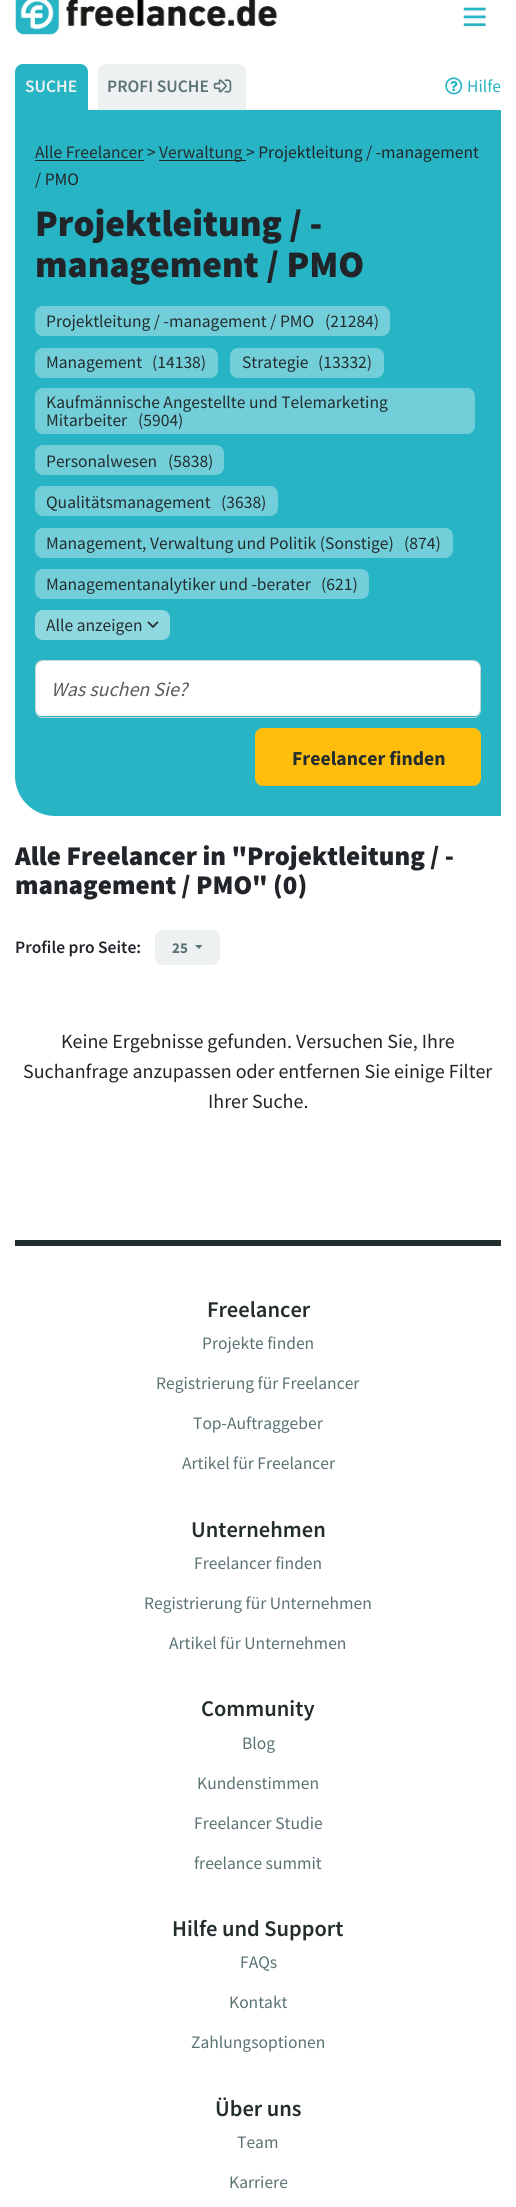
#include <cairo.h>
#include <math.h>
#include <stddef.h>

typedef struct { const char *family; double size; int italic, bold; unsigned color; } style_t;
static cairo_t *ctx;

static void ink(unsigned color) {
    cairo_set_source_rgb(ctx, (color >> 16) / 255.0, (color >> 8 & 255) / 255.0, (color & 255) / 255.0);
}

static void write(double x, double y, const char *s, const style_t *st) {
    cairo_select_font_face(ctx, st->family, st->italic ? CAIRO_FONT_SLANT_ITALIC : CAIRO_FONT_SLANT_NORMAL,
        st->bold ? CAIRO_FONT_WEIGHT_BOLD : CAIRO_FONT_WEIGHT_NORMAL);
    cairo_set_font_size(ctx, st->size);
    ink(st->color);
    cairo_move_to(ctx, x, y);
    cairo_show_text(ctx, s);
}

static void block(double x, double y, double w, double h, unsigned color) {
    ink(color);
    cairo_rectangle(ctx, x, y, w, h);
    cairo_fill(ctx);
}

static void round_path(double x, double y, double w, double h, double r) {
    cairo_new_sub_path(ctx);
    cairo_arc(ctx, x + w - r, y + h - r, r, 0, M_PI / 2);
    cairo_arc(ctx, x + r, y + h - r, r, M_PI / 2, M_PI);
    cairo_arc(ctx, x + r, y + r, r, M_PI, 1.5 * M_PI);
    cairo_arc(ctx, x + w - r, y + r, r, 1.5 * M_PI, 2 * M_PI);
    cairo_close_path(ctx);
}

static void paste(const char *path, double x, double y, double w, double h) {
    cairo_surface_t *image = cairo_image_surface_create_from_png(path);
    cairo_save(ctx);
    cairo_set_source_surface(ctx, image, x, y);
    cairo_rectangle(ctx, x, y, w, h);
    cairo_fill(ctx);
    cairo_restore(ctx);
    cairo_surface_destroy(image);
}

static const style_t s1 = {"Source Sans Pro SemiBold", 17.5, 0, 0, 0xeef1f1};
static const style_t s2 = {"Source Sans Pro SemiBold", 17.5, 0, 0, 0x5a7273};
static const style_t s3 = {"Source Sans Pro", 17.5, 0, 0, 0x27b4c4};
static const style_t s4 = {"Source Sans Pro", 17.5, 0, 0, 0x242d2e};
static const style_t s5 = {"Source Sans Pro", 17.5, 0, 0, 0x212529};
static const style_t s6 = {"Source Sans Pro Black", 37.5, 0, 0, 0x212529};
static const style_t s7 = {"Source Sans Pro", 20, 1, 0, 0x595c5f};
static const style_t s8 = {"Source Sans Pro", 19.75, 0, 1, 0x242d2e};
static const style_t s9 = {"Source Sans Pro Black", 27, 0, 0, 0x212529};
static const style_t s10 = {"Source Sans Pro SemiBold", 17.5, 0, 0, 0x212529};
static const style_t s11 = {"Source Sans Pro", 15, 0, 1, 0x5a7273};
static const style_t s12 = {"Source Sans Pro", 20, 0, 0, 0x212529};
static const style_t s13 = {"Source Sans Pro SemiBold", 22.5, 0, 0, 0x242d2e};
static const style_t s14 = {"Source Sans Pro", 17.5, 0, 0, 0x5a7273};

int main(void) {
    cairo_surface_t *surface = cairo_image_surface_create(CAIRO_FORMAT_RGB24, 516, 2207);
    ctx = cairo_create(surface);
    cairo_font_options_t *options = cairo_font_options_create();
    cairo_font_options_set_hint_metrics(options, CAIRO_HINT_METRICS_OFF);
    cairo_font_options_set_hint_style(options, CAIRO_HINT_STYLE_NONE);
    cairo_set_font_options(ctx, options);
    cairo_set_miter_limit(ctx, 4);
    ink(0xffffff);
    cairo_paint(ctx);
    paste("pic1.png", 15, 0, 262, 35);
    paste("pic2.png", 463, 7, 23, 20);
    ink(0x27b4c4);
    cairo_new_path(ctx);
    cairo_move_to(ctx, 23, 64);
    cairo_line_to(ctx, 80, 64);
    cairo_curve_to(ctx, 84.5, 64, 88, 67.5, 88, 72);
    cairo_line_to(ctx, 88, 110);
    cairo_line_to(ctx, 15, 110);
    cairo_line_to(ctx, 15, 72);
    cairo_curve_to(ctx, 15, 67.5, 18.5, 64, 23, 64);
    cairo_close_path(ctx);
    cairo_fill(ctx);
    write(25, 92, "SUCHE", &s1);
    cairo_new_path(ctx);
    cairo_move_to(ctx, 106, 64);
    cairo_line_to(ctx, 238, 64);
    cairo_curve_to(ctx, 242.5, 64, 246, 67.5, 246, 72);
    cairo_line_to(ctx, 246, 110);
    cairo_line_to(ctx, 98, 110);
    cairo_line_to(ctx, 98, 72);
    cairo_curve_to(ctx, 98, 67.5, 101.5, 64, 106, 64);
    cairo_close_path(ctx);
    cairo_fill(ctx);
    write(107, 92, "PROFI SUCHE", &s2);
    paste("pic3.png", 213, 79, 19, 14);
    paste("pic4.png", 445, 77, 18, 18);
    write(467, 92, "Hilfe", &s3);
    cairo_new_path(ctx);
    cairo_move_to(ctx, 15, 110);
    cairo_line_to(ctx, 501, 110);
    cairo_line_to(ctx, 501, 816);
    cairo_line_to(ctx, 55, 816);
    cairo_curve_to(ctx, 33, 816, 15, 798, 15, 776);
    cairo_close_path(ctx);
    cairo_fill(ctx);
    write(35, 158, "Alle Freelancer", &s4);
    block(35, 160, 109, 1, 0x242d2e);
    write(147, 158, ">", &s5);
    block(159, 160, 87, 1, 0x242d2e);
    write(159, 158, "Verwaltung", &s4);
    write(246, 158, "> Projektleitung / -management", &s5);
    write(35, 185, "/ PMO", &s5);
    write(35, 236, "Projektleitung / -", &s6);
    write(35, 277, "management / PMO", &s6);
    ink(0x72ced9);
    round_path(35, 306, 355, 30, 8);
    cairo_fill(ctx);
    write(46, 327, "Projektleitung / -management / PMO", &s4);
    write(325, 327, "(21284)", &s4);
    ink(0x72ced9);
    round_path(35, 348, 183, 30, 8);
    cairo_fill(ctx);
    write(46, 368, "Management", &s4);
    write(152, 368, "(14138)", &s4);
    ink(0x72ced9);
    round_path(230, 348, 154, 30, 8);
    cairo_fill(ctx);
    write(242, 368, "Strategie", &s4);
    write(318, 368, "(13332)", &s4);
    ink(0x72ced9);
    round_path(35, 388, 440, 46, 8);
    cairo_fill(ctx);
    write(46, 408, "Kaufmännische Angestellte und Telemarketing", &s4);
    write(46, 426, "Mitarbeiter", &s4);
    write(138, 426, "(5904)", &s4);
    ink(0x72ced9);
    round_path(35, 445, 189, 30, 8);
    cairo_fill(ctx);
    write(46, 467, "Personalwesen", &s4);
    write(168, 467, "(5838)", &s4);
    ink(0x72ced9);
    round_path(35, 486, 243, 30, 8);
    cairo_fill(ctx);
    write(46, 508, "Qualitätsmanagement", &s4);
    write(221, 508, "(3638)", &s4);
    ink(0x72ced9);
    round_path(35, 528, 418, 30, 8);
    cairo_fill(ctx);
    write(46, 549, "Management, Verwaltung und Politik (Sonstige)", &s4);
    write(404, 549, "(874)", &s4);
    ink(0x72ced9);
    round_path(35, 569, 334, 30, 8);
    cairo_fill(ctx);
    write(46, 590, "Managementanalytiker und -berater", &s4);
    write(321, 590, "(621)", &s4);
    ink(0x8ed8e0);
    round_path(35, 610, 135, 30, 8);
    cairo_fill(ctx);
    write(46, 631, "Alle anzeigen", &s4);
    paste("pic5.png", 147, 621, 12, 7);
    ink(0xffffff);
    round_path(36, 661, 444, 55, 6);
    cairo_fill(ctx);
    round_path(35.5, 660.5, 445, 57, 7.5);
    ink(0xcdd4d5);
    cairo_set_line_width(ctx, 1);
    cairo_stroke(ctx);
    write(51, 696, "Was suchen Sie?", &s7);
    ink(0xffbe0b);
    round_path(255, 728, 226, 58, 8);
    cairo_fill(ctx);
    write(292, 765, "Freelancer finden", &s8);
    write(15, 865, "Alle Freelancer in \"Projektleitung / -", &s9);
    write(15, 894, "management / PMO\" (0)", &s9);
    write(15, 953, "Profile pro Seite:", &s10);
    ink(0xeef1f1);
    round_path(155, 930, 65, 35, 8);
    cairo_fill(ctx);
    write(172, 953, "25", &s11);
    cairo_new_path(ctx);
    cairo_move_to(ctx, 195, 945);
    cairo_line_to(ctx, 202.5, 945);
    cairo_line_to(ctx, 199, 949);
    cairo_close_path(ctx);
    cairo_fill(ctx);
    write(61, 1048, "Keine Ergebnisse gefunden. Versuchen Sie, Ihre", &s12);
    write(23, 1078, "Suchanfrage anzupassen oder entfernen Sie einige Filter", &s12);
    write(208, 1108, "Ihrer Suche.", &s12);
    block(15, 1240, 486, 6, 0x242d2e);
    write(207, 1317, "Freelancer", &s13);
    write(202, 1349, "Projekte finden", &s14);
    write(156, 1389, "Registrierung für Freelancer", &s14);
    write(193, 1429, "Top-Auftraggeber", &s14);
    write(182, 1469, "Artikel für Freelancer", &s14);
    write(191, 1537, "Unternehmen", &s13);
    write(194, 1569, "Freelancer finden", &s14);
    write(144, 1609, "Registrierung für Unternehmen", &s14);
    write(169, 1649, "Artikel für Unternehmen", &s14);
    write(201, 1716, "Community", &s13);
    write(242, 1749, "Blog", &s14);
    write(197, 1789, "Kundenstimmen", &s14);
    write(194, 1829, "Freelancer Studie", &s14);
    write(194, 1869, "freelance summit", &s14);
    write(172, 1936, "Hilfe und Support", &s13);
    write(240, 1968, "FAQs", &s14);
    write(229, 2008, "Kontakt", &s14);
    write(191, 2048, "Zahlungsoptionen", &s14);
    write(215, 2116, "Über uns", &s13);
    write(237, 2148, "Team", &s14);
    write(229, 2188, "Karriere", &s14);
    cairo_surface_write_to_png(surface, "screenshot.png");
    cairo_font_options_destroy(options);
    cairo_destroy(ctx);
    cairo_surface_destroy(surface);
    return 0;
}
